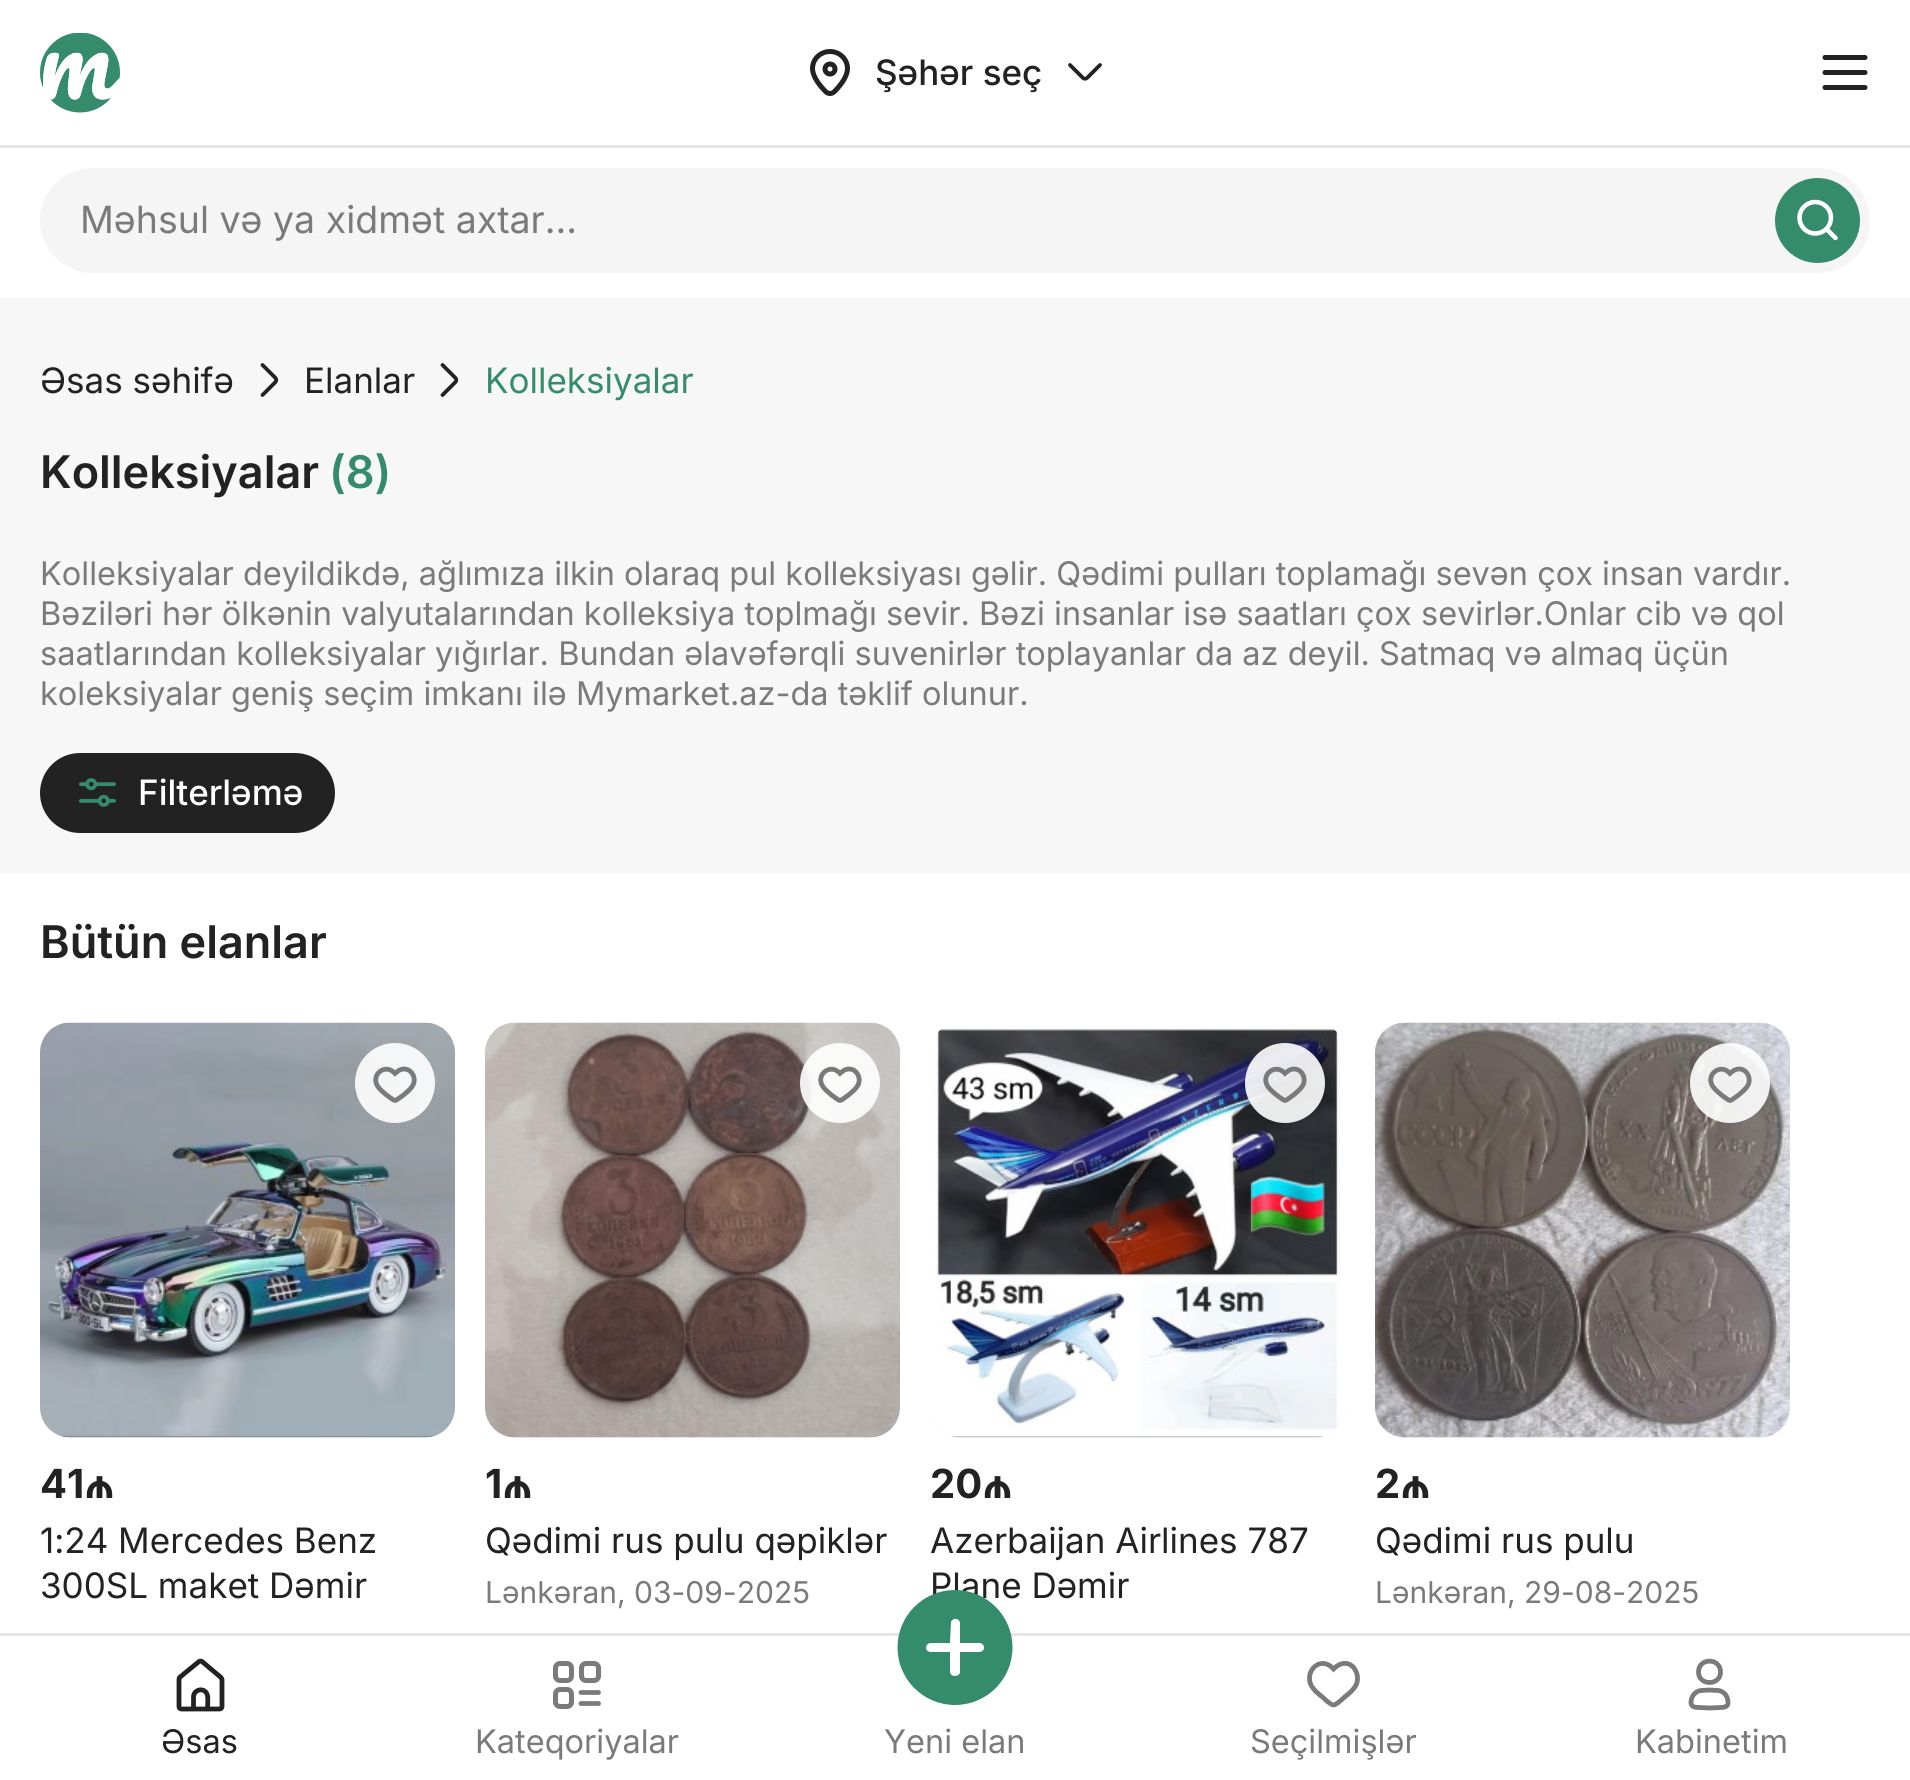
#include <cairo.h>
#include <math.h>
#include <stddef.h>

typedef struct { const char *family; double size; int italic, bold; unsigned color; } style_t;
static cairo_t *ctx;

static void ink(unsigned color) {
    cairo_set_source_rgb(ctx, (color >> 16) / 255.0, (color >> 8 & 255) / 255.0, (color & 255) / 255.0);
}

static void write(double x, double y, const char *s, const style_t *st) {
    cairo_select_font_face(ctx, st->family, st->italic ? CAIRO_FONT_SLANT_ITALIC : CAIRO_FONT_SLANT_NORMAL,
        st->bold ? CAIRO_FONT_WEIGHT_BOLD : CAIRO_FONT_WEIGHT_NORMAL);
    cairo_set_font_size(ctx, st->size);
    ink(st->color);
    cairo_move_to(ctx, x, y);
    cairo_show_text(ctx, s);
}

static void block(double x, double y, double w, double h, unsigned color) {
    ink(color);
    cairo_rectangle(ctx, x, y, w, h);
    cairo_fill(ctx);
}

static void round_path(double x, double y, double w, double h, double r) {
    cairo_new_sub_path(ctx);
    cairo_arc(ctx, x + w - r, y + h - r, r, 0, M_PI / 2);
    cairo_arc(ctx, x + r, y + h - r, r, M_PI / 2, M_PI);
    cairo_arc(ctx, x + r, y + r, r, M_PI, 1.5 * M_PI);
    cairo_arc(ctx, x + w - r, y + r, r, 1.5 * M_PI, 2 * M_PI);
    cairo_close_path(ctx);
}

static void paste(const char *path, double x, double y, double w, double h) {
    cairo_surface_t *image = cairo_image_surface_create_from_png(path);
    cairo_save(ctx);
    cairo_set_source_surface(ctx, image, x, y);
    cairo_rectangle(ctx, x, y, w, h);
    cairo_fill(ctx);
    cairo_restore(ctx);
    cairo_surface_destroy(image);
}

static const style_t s1 = {"Inter Medium", 35, 0, 0, 0x222222};
static const style_t s2 = {"Inter", 37.5, 0, 0, 0x7a7a7a};
static const style_t s3 = {"Inter", 35, 0, 0, 0x222222};
static const style_t s4 = {"Inter", 35, 0, 0, 0x358c6c};
static const style_t s5 = {"Inter SemiBold", 45, 0, 0, 0x222222};
static const style_t s6 = {"Inter SemiBold", 45, 0, 0, 0x358c6c};
static const style_t s7 = {"Inter", 32.5, 0, 0, 0x7a7a7a};
static const style_t s8 = {"Inter Medium", 35, 0, 0, 0xffffff};
static const style_t s9 = {"Inter", 40, 0, 1, 0x222222};
static const style_t s10 = {"Inter", 30, 0, 0, 0x7a7a7a};
static const style_t s11 = {"Inter", 32.5, 0, 0, 0x222222};

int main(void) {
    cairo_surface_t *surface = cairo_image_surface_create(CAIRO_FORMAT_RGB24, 1910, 1780);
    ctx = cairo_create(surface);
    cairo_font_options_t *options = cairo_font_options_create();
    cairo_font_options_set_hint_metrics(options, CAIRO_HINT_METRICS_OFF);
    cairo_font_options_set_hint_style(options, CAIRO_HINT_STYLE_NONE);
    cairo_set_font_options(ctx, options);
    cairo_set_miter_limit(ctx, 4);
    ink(0xf7f7f7);
    cairo_paint(ctx);
    block(0, 0, 1910, 298, 0xffffff);
    block(0, 145, 1910, 3, 0xe6e6e6);
    paste("pic1.png", 40, 33, 80, 80);
    paste("pic2.png", 810, 49, 40, 47);
    write(875, 85, "Şəhər seç", &s1);
    cairo_new_path(ctx);
    cairo_move_to(ctx, 1070, 65);
    cairo_line_to(ctx, 1083, 78);
    cairo_curve_to(ctx, 1084, 79, 1086, 79, 1087, 78);
    cairo_line_to(ctx, 1100, 65);
    cairo_set_line_width(ctx, 3.8);
    cairo_set_line_cap(ctx, CAIRO_LINE_CAP_ROUND);
    cairo_stroke(ctx);
    ink(0xf5f5f5);
    round_path(40, 168, 1830, 105, 52.5);
    cairo_fill(ctx);
    write(80, 233, "Məhsul və ya xidmət axtar...", &s2);
    ink(0x358c6c);
    cairo_new_path(ctx);
    cairo_arc(ctx, 1817.5, 220.5, 41, 0, 2 * M_PI);
    cairo_fill_preserve(ctx);
    cairo_set_line_width(ctx, 3);
    cairo_set_line_cap(ctx, CAIRO_LINE_CAP_BUTT);
    cairo_stroke(ctx);
    paste("pic3.png", 1797, 199, 41, 42);
    cairo_new_path(ctx);
    cairo_move_to(ctx, 1825, 57.5);
    cairo_line_to(ctx, 1865, 57.5);
    cairo_move_to(ctx, 1825, 72.5);
    cairo_line_to(ctx, 1865, 72.5);
    cairo_move_to(ctx, 1825, 87.5);
    cairo_line_to(ctx, 1865, 87.5);
    ink(0x222222);
    cairo_set_line_width(ctx, 5);
    cairo_set_line_cap(ctx, CAIRO_LINE_CAP_ROUND);
    cairo_stroke(ctx);
    write(40, 393, "Əsas səhifə", &s3);
    cairo_new_path(ctx);
    cairo_move_to(ctx, 262.5, 365);
    cairo_line_to(ctx, 275.5, 378);
    cairo_curve_to(ctx, 276.5, 379, 276.5, 381, 275.5, 382);
    cairo_line_to(ctx, 262.5, 395);
    cairo_set_line_width(ctx, 3.8);
    cairo_stroke(ctx);
    write(304, 393, "Elanlar", &s3);
    cairo_new_path(ctx);
    cairo_move_to(ctx, 442.5, 365);
    cairo_line_to(ctx, 455.5, 378);
    cairo_curve_to(ctx, 456.5, 379, 456.5, 381, 455.5, 382);
    cairo_line_to(ctx, 442.5, 395);
    cairo_stroke(ctx);
    write(485, 393, "Kolleksiyalar", &s4);
    write(40, 488, "Kolleksiyalar", &s5);
    write(329, 488, "(8)", &s6);
    write(40, 585, "Kolleksiyalar deyildikdə, ağlımıza ilkin olaraq pul kolleksiyası gəlir. Qədimi pulları toplamağı sevən çox insan vardır.", &s7);
    write(40, 625, "Bəziləri hər ölkənin valyutalarından kolleksiya toplmağı sevir. Bəzi insanlar isə saatları çox sevirlər.Onlar cib və qol", &s7);
    write(40, 665, "saatlarından kolleksiyalar yığırlar. Bundan əlavəfərqli suvenirlər toplayanlar da az deyil. Satmaq və almaq üçün", &s7);
    write(40, 705, "koleksiyalar geniş seçim imkanı ilə Mymarket.az-da təklif olunur.", &s7);
    ink(0x222222);
    round_path(41.5, 754.5, 292, 77, 38.5);
    cairo_fill_preserve(ctx);
    cairo_set_line_width(ctx, 3);
    cairo_set_line_cap(ctx, CAIRO_LINE_CAP_BUTT);
    cairo_stroke(ctx);
    paste("pic4.png", 79, 778, 37, 29);
    write(138, 805, "Filterləmə", &s8);
    block(0, 873, 1910, 760, 0xffffff);
    write(40, 958, "Bütün elanlar", &s5);
    ink(0xf7f7f7);
    round_path(40, 1023, 415, 415, 30);
    cairo_fill(ctx);
    paste("pic5.png", 40, 1022, 415, 416);
    cairo_set_source_rgba(ctx, 1, 1, 1, 0.9);
    cairo_arc(ctx, 395, 1083, 40, 0, 2 * M_PI);
    cairo_fill(ctx);
    cairo_new_path(ctx);
    cairo_move_to(ctx, 393.5, 1072);
    cairo_line_to(ctx, 395, 1073.5);
    cairo_curve_to(ctx, 397, 1072, 398.5, 1070, 401, 1069.5);
    cairo_curve_to(ctx, 410.5, 1066.5, 417, 1077.5, 413, 1085);
    cairo_curve_to(ctx, 411, 1089, 407, 1092, 403.5, 1095);
    cairo_curve_to(ctx, 402, 1096, 396.5, 1100.5, 395, 1100.5);
    cairo_curve_to(ctx, 393.5, 1100.5, 388, 1096, 386.5, 1095);
    cairo_curve_to(ctx, 383, 1092, 379, 1089, 377, 1085);
    cairo_curve_to(ctx, 371.5, 1074.5, 384.5, 1064, 393.5, 1072);
    cairo_close_path(ctx);
    ink(0x7a7a7a);
    cairo_set_line_width(ctx, 4.8);
    cairo_set_line_cap(ctx, CAIRO_LINE_CAP_ROUND);
    cairo_stroke(ctx);
    write(40, 1498, "41₼", &s9);
    write(40, 1553, "1:24 Mercedes Benz", &s3);
    write(40, 1598, "300SL maket Dəmir", &s3);
    ink(0xf7f7f7);
    round_path(485, 1023, 415, 415, 30);
    cairo_fill(ctx);
    paste("pic6.png", 485, 1022, 415, 416);
    cairo_set_source_rgba(ctx, 1, 1, 1, 0.9);
    cairo_arc(ctx, 840, 1083, 40, 0, 2 * M_PI);
    cairo_fill(ctx);
    cairo_new_path(ctx);
    cairo_move_to(ctx, 838.5, 1072);
    cairo_line_to(ctx, 840, 1073.5);
    cairo_curve_to(ctx, 842, 1072, 843.5, 1070, 846, 1069.5);
    cairo_curve_to(ctx, 855.5, 1066.5, 862, 1077.5, 858, 1085);
    cairo_curve_to(ctx, 856, 1089, 852, 1092, 848.5, 1095);
    cairo_curve_to(ctx, 847, 1096, 841.5, 1100.5, 840, 1100.5);
    cairo_curve_to(ctx, 838.5, 1100.5, 833, 1096, 831.5, 1095);
    cairo_curve_to(ctx, 828, 1092, 824, 1089, 822, 1085);
    cairo_curve_to(ctx, 816.5, 1074.5, 829.5, 1064, 838.5, 1072);
    cairo_close_path(ctx);
    ink(0x7a7a7a);
    cairo_stroke(ctx);
    write(485, 1498, "1₼", &s9);
    write(485, 1553, "Qədimi rus pulu qəpiklər", &s3);
    write(485, 1603, "Lənkəran, 03-09-2025", &s10);
    ink(0xf7f7f7);
    round_path(930, 1023, 415, 415, 30);
    cairo_fill(ctx);
    paste("pic7.png", 930, 1023, 415, 415);
    cairo_set_source_rgba(ctx, 1, 1, 1, 0.9);
    cairo_arc(ctx, 1285, 1083, 40, 0, 2 * M_PI);
    cairo_fill(ctx);
    cairo_new_path(ctx);
    cairo_move_to(ctx, 1283.5, 1072);
    cairo_line_to(ctx, 1285, 1073.5);
    cairo_curve_to(ctx, 1287, 1072, 1288.5, 1070, 1291, 1069.5);
    cairo_curve_to(ctx, 1300.5, 1066.5, 1307, 1077.5, 1303, 1085);
    cairo_curve_to(ctx, 1301, 1089, 1297, 1092, 1293.5, 1095);
    cairo_curve_to(ctx, 1292, 1096, 1286.5, 1100.5, 1285, 1100.5);
    cairo_curve_to(ctx, 1283.5, 1100.5, 1278, 1096, 1276.5, 1095);
    cairo_curve_to(ctx, 1273, 1092, 1269, 1089, 1267, 1085);
    cairo_curve_to(ctx, 1261.5, 1074.5, 1274.5, 1064, 1283.5, 1072);
    cairo_close_path(ctx);
    ink(0x7a7a7a);
    cairo_stroke(ctx);
    write(930, 1498, "20₼", &s9);
    write(930, 1553, "Azerbaijan Airlines 787", &s3);
    write(930, 1598, "Plane Dəmir", &s3);
    ink(0xf7f7f7);
    round_path(1375, 1023, 415, 415, 30);
    cairo_fill(ctx);
    paste("pic8.png", 1375, 1022, 415, 416);
    cairo_set_source_rgba(ctx, 1, 1, 1, 0.9);
    cairo_arc(ctx, 1730, 1083, 40, 0, 2 * M_PI);
    cairo_fill(ctx);
    cairo_new_path(ctx);
    cairo_move_to(ctx, 1728.5, 1072);
    cairo_line_to(ctx, 1730, 1073.5);
    cairo_curve_to(ctx, 1732, 1072, 1733.5, 1070, 1736, 1069.5);
    cairo_curve_to(ctx, 1745.5, 1066.5, 1752, 1077.5, 1748, 1085);
    cairo_curve_to(ctx, 1746, 1089, 1742, 1092, 1738.5, 1095);
    cairo_curve_to(ctx, 1737, 1096, 1731.5, 1100.5, 1730, 1100.5);
    cairo_curve_to(ctx, 1728.5, 1100.5, 1723, 1096, 1721.5, 1095);
    cairo_curve_to(ctx, 1718, 1092, 1714, 1089, 1712, 1085);
    cairo_curve_to(ctx, 1706.5, 1074.5, 1719.5, 1064, 1728.5, 1072);
    cairo_close_path(ctx);
    ink(0x7a7a7a);
    cairo_stroke(ctx);
    write(1375, 1498, "2₼", &s9);
    write(1375, 1553, "Qədimi rus pulu", &s3);
    write(1375, 1603, "Lənkəran, 29-08-2025", &s10);
    block(0, 1636, 1910, 144, 0xffffff);
    block(0, 1633, 1910, 3, 0xe6e6e6);
    cairo_new_path(ctx);
    cairo_move_to(ctx, 199, 1661.5);
    cairo_curve_to(ctx, 200, 1661, 201, 1661, 202, 1661.5);
    cairo_line_to(ctx, 221, 1677.5);
    cairo_line_to(ctx, 222, 1679.5);
    cairo_line_to(ctx, 222, 1706.5);
    cairo_curve_to(ctx, 222, 1708, 221, 1709, 219.5, 1709);
    cairo_line_to(ctx, 181.5, 1709);
    cairo_curve_to(ctx, 180, 1709, 179, 1708, 179, 1706.5);
    cairo_line_to(ctx, 179, 1679.5);
    cairo_line_to(ctx, 179.5, 1677.5);
    cairo_close_path(ctx);
    cairo_move_to(ctx, 193.5, 1697);
    cairo_curve_to(ctx, 193.5, 1689.5, 204, 1687, 207, 1694);
    cairo_curve_to(ctx, 208.5, 1697, 207.5, 1705.5, 207.5, 1709);
    cairo_line_to(ctx, 193.5, 1709);
    cairo_close_path(ctx);
    ink(0x222222);
    cairo_set_line_cap(ctx, CAIRO_LINE_CAP_BUTT);
    cairo_stroke(ctx);
    write(161, 1753, "Əsas", &s11);
    round_path(555.5, 1663.5, 16, 17, 4.5);
    ink(0x7a7a7a);
    cairo_set_line_width(ctx, 5);
    cairo_stroke(ctx);
    round_path(555.5, 1689.5, 16, 17, 4.5);
    cairo_stroke(ctx);
    round_path(581.5, 1663.5, 17, 17, 4.5);
    cairo_stroke(ctx);
    cairo_new_path(ctx);
    cairo_move_to(ctx, 581, 1692.5);
    cairo_line_to(ctx, 598.5, 1692.5);
    cairo_move_to(ctx, 581, 1703.5);
    cairo_line_to(ctx, 598.5, 1703.5);
    cairo_set_line_width(ctx, 4.8);
    cairo_set_line_cap(ctx, CAIRO_LINE_CAP_ROUND);
    cairo_stroke(ctx);
    write(475, 1753, "Kateqoriyalar", &s7);
    ink(0x358c6c);
    cairo_new_path(ctx);
    cairo_arc(ctx, 955, 1647.5, 57.5, 0, 2 * M_PI);
    cairo_fill(ctx);
    ink(0xffffff);
    cairo_set_fill_rule(ctx, CAIRO_FILL_RULE_EVEN_ODD);
    cairo_new_path(ctx);
    cairo_move_to(ctx, 960, 1624);
    cairo_curve_to(ctx, 960, 1618, 953, 1617, 951, 1622);
    cairo_line_to(ctx, 950, 1643);
    cairo_line_to(ctx, 931, 1643);
    cairo_curve_to(ctx, 928, 1643, 926, 1645, 926, 1648);
    cairo_curve_to(ctx, 926, 1650, 928, 1652, 931, 1652);
    cairo_line_to(ctx, 950, 1652);
    cairo_line_to(ctx, 950, 1672);
    cairo_curve_to(ctx, 950, 1674, 952, 1676, 955, 1676);
    cairo_curve_to(ctx, 958, 1676, 960, 1674, 960, 1672);
    cairo_line_to(ctx, 960, 1652);
    cairo_line_to(ctx, 979, 1652);
    cairo_curve_to(ctx, 982, 1652, 984, 1650, 984, 1648);
    cairo_curve_to(ctx, 984, 1645, 982, 1643, 979, 1643);
    cairo_line_to(ctx, 960, 1643);
    cairo_close_path(ctx);
    cairo_fill(ctx);
    write(884, 1753, "Yeni elan", &s7);
    cairo_new_path(ctx);
    cairo_move_to(ctx, 1332, 1667.5);
    cairo_line_to(ctx, 1333.5, 1669);
    cairo_curve_to(ctx, 1335.5, 1667, 1338, 1665, 1341, 1664);
    cairo_curve_to(ctx, 1353, 1660, 1361, 1675, 1356, 1685);
    cairo_curve_to(ctx, 1353.5, 1690, 1348.5, 1694, 1344, 1697.5);
    cairo_curve_to(ctx, 1342, 1699.5, 1336, 1705, 1333.5, 1705);
    cairo_curve_to(ctx, 1331, 1705, 1325, 1699.5, 1323, 1697.5);
    cairo_curve_to(ctx, 1318.5, 1694, 1313.5, 1690, 1311, 1685);
    cairo_curve_to(ctx, 1304.5, 1671, 1320, 1656, 1332, 1667.5);
    cairo_close_path(ctx);
    cairo_stroke(ctx);
    write(1250, 1753, "Seçilmişlər", &s7);
    cairo_new_path(ctx);
    cairo_move_to(ctx, 1720.5, 1672);
    cairo_curve_to(ctx, 1720.5, 1686, 1698.5, 1686, 1698.5, 1672);
    cairo_curve_to(ctx, 1698.5, 1657.5, 1720.5, 1657.5, 1720.5, 1672);
    cairo_close_path(ctx);
    cairo_move_to(ctx, 1691, 1702.5);
    cairo_curve_to(ctx, 1691, 1696.5, 1695, 1691.5, 1700.5, 1690.5);
    cairo_line_to(ctx, 1709.5, 1690);
    cairo_line_to(ctx, 1718.5, 1690.5);
    cairo_curve_to(ctx, 1724.5, 1691.5, 1728, 1696.5, 1728, 1702.5);
    cairo_curve_to(ctx, 1728.5, 1707, 1723.5, 1707.5, 1720, 1707.5);
    cairo_line_to(ctx, 1709.5, 1708);
    cairo_line_to(ctx, 1699, 1707.5);
    cairo_curve_to(ctx, 1695.5, 1707.5, 1691, 1707, 1691, 1702.5);
    cairo_close_path(ctx);
    cairo_set_line_cap(ctx, CAIRO_LINE_CAP_BUTT);
    cairo_stroke(ctx);
    write(1635, 1753, "Kabinetim", &s7);
    cairo_surface_write_to_png(surface, "screenshot.png");
    cairo_font_options_destroy(options);
    cairo_destroy(ctx);
    cairo_surface_destroy(surface);
    return 0;
}
